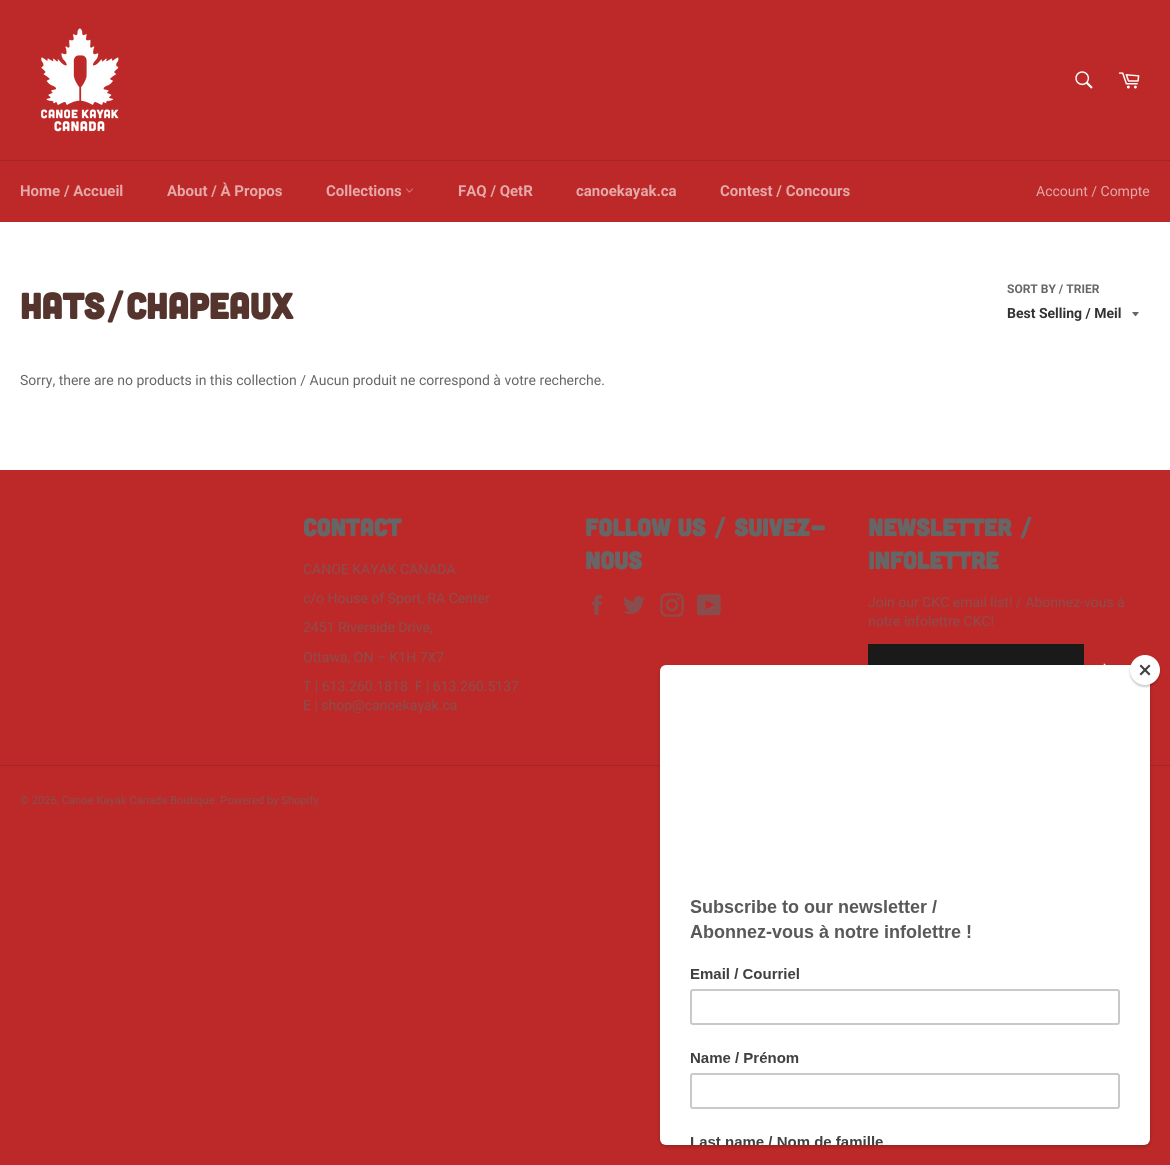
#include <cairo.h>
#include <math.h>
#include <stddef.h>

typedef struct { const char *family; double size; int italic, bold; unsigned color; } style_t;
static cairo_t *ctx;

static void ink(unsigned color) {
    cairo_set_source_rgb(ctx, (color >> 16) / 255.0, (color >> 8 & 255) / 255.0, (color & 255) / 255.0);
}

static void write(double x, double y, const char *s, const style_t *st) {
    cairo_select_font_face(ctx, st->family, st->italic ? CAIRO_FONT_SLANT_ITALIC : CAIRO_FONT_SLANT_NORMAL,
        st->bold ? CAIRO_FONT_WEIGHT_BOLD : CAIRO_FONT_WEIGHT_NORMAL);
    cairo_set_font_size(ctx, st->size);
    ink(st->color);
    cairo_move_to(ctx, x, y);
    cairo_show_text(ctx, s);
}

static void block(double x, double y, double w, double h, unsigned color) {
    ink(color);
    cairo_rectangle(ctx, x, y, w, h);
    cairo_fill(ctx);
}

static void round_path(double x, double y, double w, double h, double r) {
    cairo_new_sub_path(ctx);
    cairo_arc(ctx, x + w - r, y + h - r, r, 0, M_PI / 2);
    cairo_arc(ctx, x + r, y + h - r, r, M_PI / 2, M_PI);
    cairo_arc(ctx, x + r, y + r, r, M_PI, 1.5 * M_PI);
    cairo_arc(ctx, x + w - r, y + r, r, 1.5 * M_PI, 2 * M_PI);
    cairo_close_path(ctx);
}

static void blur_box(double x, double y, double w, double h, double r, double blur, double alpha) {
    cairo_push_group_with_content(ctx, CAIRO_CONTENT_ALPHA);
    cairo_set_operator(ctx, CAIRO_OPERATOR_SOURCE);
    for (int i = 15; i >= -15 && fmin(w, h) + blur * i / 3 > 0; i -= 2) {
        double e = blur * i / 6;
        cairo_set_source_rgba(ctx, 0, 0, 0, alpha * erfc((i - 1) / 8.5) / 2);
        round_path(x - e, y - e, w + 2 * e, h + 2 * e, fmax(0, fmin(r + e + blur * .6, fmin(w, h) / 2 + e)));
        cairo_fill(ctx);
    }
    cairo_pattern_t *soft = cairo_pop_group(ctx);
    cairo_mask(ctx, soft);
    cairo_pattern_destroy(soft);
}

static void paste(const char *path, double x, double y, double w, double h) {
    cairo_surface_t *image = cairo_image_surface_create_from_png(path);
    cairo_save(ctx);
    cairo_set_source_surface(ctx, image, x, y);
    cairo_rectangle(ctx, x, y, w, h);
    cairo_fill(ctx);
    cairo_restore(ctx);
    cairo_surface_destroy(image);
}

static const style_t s1 = {"Roboto", 15, 0, 1, 0xe5a9a9};
static const style_t s2 = {"Roboto", 14, 0, 0, 0xe5a9a9};
static const style_t s3 = {"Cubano", 36, 0, 1, 0x55342d};
static const style_t s4 = {"Roboto", 12, 0, 1, 0x666666};
static const style_t s5 = {"Roboto", 14, 0, 1, 0x333333};
static const style_t s6 = {"Roboto", 14, 0, 0, 0x666666};
static const style_t s7 = {"Cubano", 24, 0, 1, 0x666666};
static const style_t s8 = {"Roboto", 14, 0, 0, 0x894e4d};
static const style_t s9 = {"Roboto", 11.2, 0, 0, 0x894e4d};

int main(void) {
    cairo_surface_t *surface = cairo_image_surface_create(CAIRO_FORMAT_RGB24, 1170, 1165);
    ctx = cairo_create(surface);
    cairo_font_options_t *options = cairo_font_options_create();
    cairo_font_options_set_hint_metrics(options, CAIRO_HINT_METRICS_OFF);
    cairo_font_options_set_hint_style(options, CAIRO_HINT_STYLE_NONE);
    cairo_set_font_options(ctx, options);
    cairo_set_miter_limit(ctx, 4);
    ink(0xbd2928);
    cairo_paint(ctx);
    block(0, 222, 1170, 248, 0xffffff);
    paste("pic1.png", 40, 28, 79, 104);
    paste("pic2.png", 1075, 71, 18, 18);
    paste("pic3.png", 1118, 72, 22, 17);
    block(0, 160, 1170, 1, 0xa82424);
    write(20, 196, "Home / Accueil", &s1);
    write(167, 196, "About / À Propos", &s1);
    write(326, 196, "Collections", &s1);
    paste("pic4.png", 406, 188, 7, 5);
    write(458, 196, "FAQ / QetR", &s1);
    write(576, 196, "canoekayak.ca", &s1);
    write(720, 196, "Contest / Concours", &s1);
    write(1036, 196, "Account / Compte", &s2);
    write(20, 319, "Hats/Chapeaux", &s3);
    write(1007, 293, "SORT BY / TRIER", &s4);
    cairo_new_path(ctx);
    cairo_move_to(ctx, 1132, 312);
    cairo_curve_to(ctx, 1136.5, 317.5, 1134.5, 317.5, 1139, 312);
    cairo_close_path(ctx);
    cairo_fill(ctx);
    write(1007, 318, "Best Selling / Meil", &s5);
    write(20, 385, "Sorry, there are no products in this collection / Aucun produit ne correspond à votre recherche.", &s6);
    write(303, 536, "Contact", &s7);
    write(303, 574, "CANOE KAYAK CANADA", &s8);
    write(303, 603, "c/o House of Sport, RA Center", &s8);
    write(303, 632, "2451 Riverside Drive,", &s8);
    write(303, 662, "Ottawa, ON – K1H 7X7", &s8);
    write(303, 691, "T | 613.260.1818  F | 613.260.5137", &s8);
    write(303, 710, "E | shop@canoekayak.ca", &s8);
    write(585, 536, "Follow us / Suivez-", &s7);
    write(585, 569, "nous", &s7);
    paste("pic5.png", 592, 595, 10, 20);
    paste("pic6.png", 623, 596, 22, 18);
    paste("pic7.png", 660, 593, 24, 24);
    paste("pic8.png", 697, 594, 24, 22);
    write(868, 536, "Newsletter /", &s7);
    write(868, 569, "Infolettre", &s7);
    write(868, 607, "Join our CKC email list! / Abonnez-vous à", &s8);
    write(868, 626, "notre infolettre CKC!", &s8);
    block(868, 644, 216, 21, 0x1a1a1a);
    paste("pic9.png", 1103, 663, 3, 2);
    block(0, 765, 1170, 1, 0xa82424);
    write(20, 804, "© 2026, Canoe Kayak Canada Boutique. Powered by Shopify", &s9);
    ink(0x000000);
    blur_box(660, 667, 490, 480, 6, 2, 0.2);
    paste("pic10.png", 660, 665, 490, 480);
    blur_box(1130, 657, 30, 30, 15, 1, 0.2);
    ink(0xffffff);
    cairo_arc(ctx, 1145, 670, 15, 0, 2 * M_PI);
    cairo_fill(ctx);
    ink(0x414141);
    cairo_new_path(ctx);
    cairo_move_to(ctx, 1149, 664.5);
    cairo_line_to(ctx, 1150.5, 666);
    cairo_line_to(ctx, 1141, 675.5);
    cairo_line_to(ctx, 1139.5, 674);
    cairo_close_path(ctx);
    cairo_fill(ctx);
    cairo_new_path(ctx);
    cairo_move_to(ctx, 1139.5, 666);
    cairo_line_to(ctx, 1141, 664.5);
    cairo_line_to(ctx, 1150.5, 674);
    cairo_line_to(ctx, 1149, 675.5);
    cairo_close_path(ctx);
    cairo_fill(ctx);
    cairo_surface_write_to_png(surface, "screenshot.png");
    cairo_font_options_destroy(options);
    cairo_destroy(ctx);
    cairo_surface_destroy(surface);
    return 0;
}
